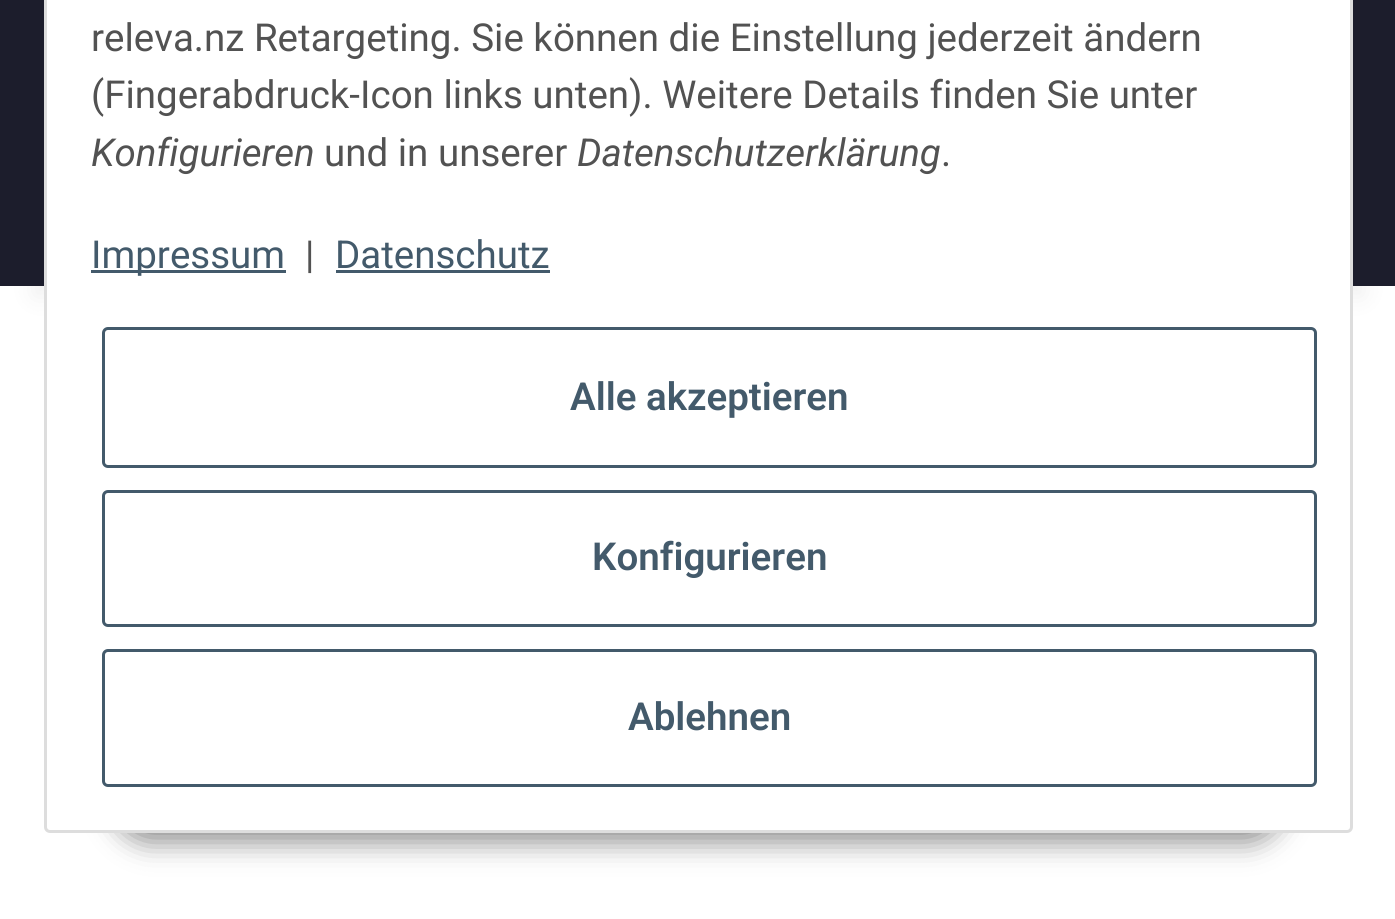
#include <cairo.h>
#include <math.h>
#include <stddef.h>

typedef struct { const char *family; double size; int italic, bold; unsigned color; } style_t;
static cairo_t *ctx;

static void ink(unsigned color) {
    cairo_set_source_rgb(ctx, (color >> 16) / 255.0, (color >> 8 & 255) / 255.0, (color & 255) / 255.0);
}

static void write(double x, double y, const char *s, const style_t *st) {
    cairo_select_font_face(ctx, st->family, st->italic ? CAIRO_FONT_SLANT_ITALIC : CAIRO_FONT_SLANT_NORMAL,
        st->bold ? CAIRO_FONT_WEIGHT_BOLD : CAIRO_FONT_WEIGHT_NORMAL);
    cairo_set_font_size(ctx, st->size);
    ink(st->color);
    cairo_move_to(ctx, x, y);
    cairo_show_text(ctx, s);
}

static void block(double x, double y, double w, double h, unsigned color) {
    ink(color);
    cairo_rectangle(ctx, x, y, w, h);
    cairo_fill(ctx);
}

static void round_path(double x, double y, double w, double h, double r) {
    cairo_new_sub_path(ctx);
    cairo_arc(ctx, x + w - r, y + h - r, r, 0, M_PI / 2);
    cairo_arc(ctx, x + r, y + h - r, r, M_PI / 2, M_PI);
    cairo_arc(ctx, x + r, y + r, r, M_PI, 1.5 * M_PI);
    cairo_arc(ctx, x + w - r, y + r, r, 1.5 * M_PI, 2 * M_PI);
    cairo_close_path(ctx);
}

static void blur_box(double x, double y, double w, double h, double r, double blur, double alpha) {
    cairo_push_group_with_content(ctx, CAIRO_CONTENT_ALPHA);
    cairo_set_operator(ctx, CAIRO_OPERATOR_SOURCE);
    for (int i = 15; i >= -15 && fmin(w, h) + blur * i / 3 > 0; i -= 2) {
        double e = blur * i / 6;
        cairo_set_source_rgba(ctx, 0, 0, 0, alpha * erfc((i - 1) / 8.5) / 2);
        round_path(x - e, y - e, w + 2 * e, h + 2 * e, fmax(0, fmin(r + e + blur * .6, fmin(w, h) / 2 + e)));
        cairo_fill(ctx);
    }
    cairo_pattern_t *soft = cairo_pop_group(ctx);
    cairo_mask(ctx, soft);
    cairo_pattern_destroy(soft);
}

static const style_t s1 = {"Roboto", 38.5, 0, 0, 0x525252};
static const style_t s2 = {"Roboto", 38.5, 1, 0, 0x525252};
static const style_t s3 = {"Roboto", 38.5, 0, 0, 0x435a6b};
static const style_t s4 = {"Roboto SemiBold", 38.5, 0, 0, 0x435a6b};

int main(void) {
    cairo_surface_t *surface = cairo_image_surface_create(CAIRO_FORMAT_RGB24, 1395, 919);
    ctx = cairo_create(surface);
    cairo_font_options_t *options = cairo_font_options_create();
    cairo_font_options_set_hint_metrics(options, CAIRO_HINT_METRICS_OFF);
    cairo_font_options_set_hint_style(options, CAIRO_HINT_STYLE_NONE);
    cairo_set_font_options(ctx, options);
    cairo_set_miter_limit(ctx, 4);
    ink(0xffffff);
    cairo_paint(ctx);
    ink(0x000000);
    blur_box(33, 77, 1331, 220, 0, 12.5, 0.06);
    block(0, 0, 1395, 286, 0x1c1d2c);
    ink(0x000000);
    blur_box(113, 754, 1171, 88, 44, 14, 0.45);
    ink(0xffffff);
    round_path(45.5, -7.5, 1306, 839, 4.5);
    cairo_fill_preserve(ctx);
    ink(0xdddddd);
    cairo_set_line_width(ctx, 3);
    cairo_stroke(ctx);
    write(91, 51, "releva.nz Retargeting. Sie können die Einstellung jederzeit ändern", &s1);
    write(91, 108, "(Fingerabdruck-Icon links unten). Weitere Details finden Sie unter", &s1);
    write(91, 166, "Konfigurieren", &s2);
    write(324, 166, "und in unserer", &s1);
    write(577, 166, "Datenschutzerklärung", &s2);
    write(941, 166, ".", &s1);
    block(91, 270, 195, 3, 0x435a6b);
    write(91, 268, "Impressum", &s3);
    write(305, 268, "|", &s1);
    write(335, 268, "Datenschutz", &s3);
    block(336, 270, 214, 3, 0x435a6b);
    round_path(103.5, 328.5, 1212, 138, 4.5);
    cairo_stroke(ctx);
    write(570, 410, "Alle akzeptieren", &s4);
    round_path(103.5, 491.5, 1212, 134, 4.5);
    cairo_stroke(ctx);
    write(592, 570, "Konfigurieren", &s4);
    round_path(103.5, 650.5, 1212, 135, 4.5);
    cairo_stroke(ctx);
    write(628, 730, "Ablehnen", &s4);
    cairo_surface_write_to_png(surface, "screenshot.png");
    cairo_font_options_destroy(options);
    cairo_destroy(ctx);
    cairo_surface_destroy(surface);
    return 0;
}
